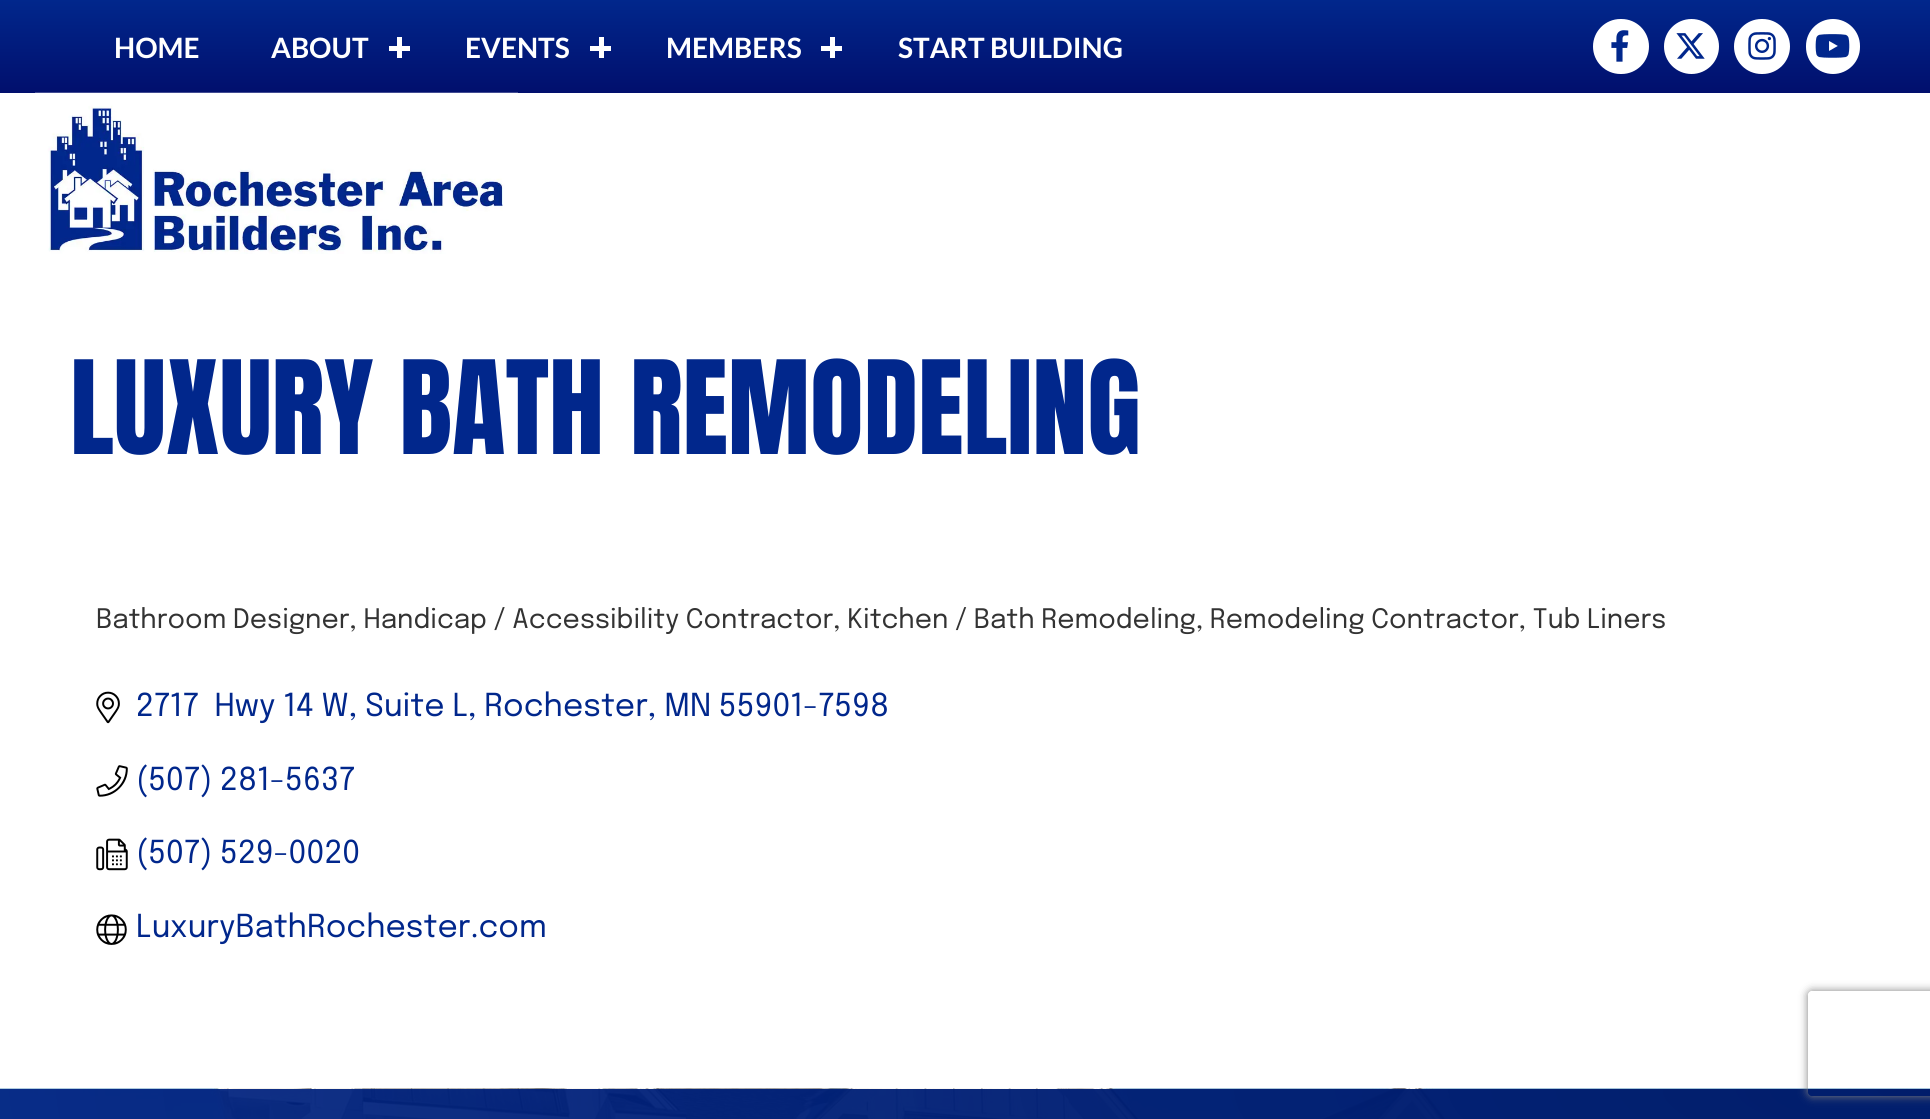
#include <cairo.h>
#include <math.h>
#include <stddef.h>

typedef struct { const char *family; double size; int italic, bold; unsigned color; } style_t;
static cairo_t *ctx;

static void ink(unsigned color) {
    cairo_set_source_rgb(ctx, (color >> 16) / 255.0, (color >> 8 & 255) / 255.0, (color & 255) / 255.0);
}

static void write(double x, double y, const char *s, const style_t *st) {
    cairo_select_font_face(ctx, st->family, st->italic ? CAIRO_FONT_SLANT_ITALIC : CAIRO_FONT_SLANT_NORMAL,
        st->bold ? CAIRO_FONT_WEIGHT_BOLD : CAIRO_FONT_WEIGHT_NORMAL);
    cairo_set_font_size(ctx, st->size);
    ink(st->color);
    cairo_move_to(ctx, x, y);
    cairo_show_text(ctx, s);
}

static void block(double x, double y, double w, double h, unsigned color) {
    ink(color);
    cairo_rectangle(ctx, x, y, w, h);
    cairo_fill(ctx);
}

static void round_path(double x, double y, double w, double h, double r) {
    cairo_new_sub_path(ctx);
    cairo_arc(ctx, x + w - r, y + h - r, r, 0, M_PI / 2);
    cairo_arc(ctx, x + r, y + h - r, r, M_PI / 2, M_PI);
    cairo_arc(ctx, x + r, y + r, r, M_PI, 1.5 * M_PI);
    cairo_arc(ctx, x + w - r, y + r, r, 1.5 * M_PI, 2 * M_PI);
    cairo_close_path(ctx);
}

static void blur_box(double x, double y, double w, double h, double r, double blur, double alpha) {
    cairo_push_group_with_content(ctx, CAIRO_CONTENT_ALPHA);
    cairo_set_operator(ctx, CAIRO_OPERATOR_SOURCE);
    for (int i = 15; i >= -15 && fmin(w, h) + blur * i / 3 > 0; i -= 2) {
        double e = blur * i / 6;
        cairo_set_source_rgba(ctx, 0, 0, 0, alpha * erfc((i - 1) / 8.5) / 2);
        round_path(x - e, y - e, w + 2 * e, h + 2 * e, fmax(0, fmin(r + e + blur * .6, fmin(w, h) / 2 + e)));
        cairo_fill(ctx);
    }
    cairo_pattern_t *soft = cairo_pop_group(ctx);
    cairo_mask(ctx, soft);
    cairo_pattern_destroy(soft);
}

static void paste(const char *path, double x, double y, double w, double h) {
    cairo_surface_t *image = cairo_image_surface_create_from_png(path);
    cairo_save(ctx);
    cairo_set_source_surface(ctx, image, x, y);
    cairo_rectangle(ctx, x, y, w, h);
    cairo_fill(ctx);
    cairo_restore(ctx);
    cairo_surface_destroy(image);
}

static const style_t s1 = {"Lato", 28, 0, 1, 0xffffff};
static const style_t s2 = {"Anton", 110.25, 0, 0, 0x01278c};
static const style_t s3 = {"Epilogue", 26.78, 0, 0, 0x333333};
static const style_t s4 = {"Epilogue", 31.5, 0, 0, 0x01278c};

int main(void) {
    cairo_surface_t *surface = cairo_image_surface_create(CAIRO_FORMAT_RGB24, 1930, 1119);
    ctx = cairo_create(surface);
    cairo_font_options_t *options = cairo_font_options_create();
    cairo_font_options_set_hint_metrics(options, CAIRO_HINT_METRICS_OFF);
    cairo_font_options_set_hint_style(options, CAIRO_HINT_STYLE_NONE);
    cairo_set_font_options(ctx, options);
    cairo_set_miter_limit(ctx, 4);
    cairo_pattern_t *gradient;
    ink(0xffffff);
    cairo_paint(ctx);
    gradient = cairo_pattern_create_linear(965, 0, 965, 93);
    cairo_pattern_add_color_stop_rgba(gradient, 0, 0.004, 0.153, 0.549, 1);
    cairo_pattern_add_color_stop_rgba(gradient, 1, 0.004, 0.059, 0.427, 1);
    cairo_set_source(ctx, gradient);
    cairo_pattern_destroy(gradient);
    cairo_rectangle(ctx, 0, 0, 1930, 93);
    cairo_fill(ctx);
    write(114, 58, "HOME", &s1);
    write(271, 58, "ABOUT", &s1);
    block(389, 46, 21, 5, 0xffffff);
    block(397, 37, 5, 21, 0xffffff);
    write(465, 58, "EVENTS", &s1);
    block(590, 46, 21, 5, 0xffffff);
    block(599, 37, 5, 21, 0xffffff);
    write(666, 58, "MEMBERS", &s1);
    block(821, 46, 21, 5, 0xffffff);
    block(830, 37, 5, 21, 0xffffff);
    write(898, 58, "START BUILDING", &s1);
    round_path(1593, 19, 56, 55, 27.5);
    cairo_fill(ctx);
    paste("pic1.png", 1611, 30, 18, 32);
    cairo_arc(ctx, 1691.5, 46.5, 27.5, 0, 2 * M_PI);
    cairo_fill(ctx);
    paste("pic2.png", 1676, 33, 29, 26);
    round_path(1734, 19, 56, 55, 27.5);
    cairo_fill(ctx);
    paste("pic3.png", 1748, 32, 28, 28);
    round_path(1806, 19, 54, 55, 27);
    cairo_fill(ctx);
    paste("pic4.png", 1815, 34, 35, 24);
    paste("pic5.png", 35, 92, 483, 162);
    write(70, 454, "LUXURY BATH REMODELING", &s2);
    write(96, 628, "Bathroom Designer, Handicap / Accessibility Contractor, Kitchen / Bath Remodeling, Remodeling Contractor, Tub Liners", &s3);
    paste("pic6.png", 96, 691, 24, 33);
    write(136, 716, "2717  Hwy 14 W, Suite L, Rochester, MN 55901-7598", &s4);
    paste("pic7.png", 96, 765, 32, 32);
    write(136, 790, "(507) 281-5637", &s4);
    paste("pic8.png", 96, 838, 32, 33);
    write(136, 863, "(507) 529-0020", &s4);
    paste("pic9.png", 96, 914, 31, 31);
    write(136, 937, "LuxuryBathRochester.com", &s4);
    paste("pic10.png", 0, 1088, 1930, 31);
    cairo_save(ctx);
    cairo_set_fill_rule(ctx, CAIRO_FILL_RULE_EVEN_ODD);
    cairo_new_path(ctx);
    cairo_move_to(ctx, 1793, 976);
    cairo_line_to(ctx, 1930, 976);
    cairo_line_to(ctx, 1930, 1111);
    cairo_line_to(ctx, 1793, 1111);
    cairo_close_path(ctx);
    cairo_move_to(ctx, 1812, 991);
    cairo_line_to(ctx, 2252, 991);
    cairo_curve_to(ctx, 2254, 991, 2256, 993, 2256, 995);
    cairo_line_to(ctx, 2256, 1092);
    cairo_curve_to(ctx, 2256, 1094, 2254, 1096, 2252, 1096);
    cairo_line_to(ctx, 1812, 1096);
    cairo_curve_to(ctx, 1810, 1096, 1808, 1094, 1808, 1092);
    cairo_line_to(ctx, 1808, 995);
    cairo_curve_to(ctx, 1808, 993, 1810, 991, 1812, 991);
    cairo_close_path(ctx);
    cairo_clip(ctx);
    ink(0x808080);
    blur_box(1808, 991, 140, 105, 4, 4.5, 1);
    cairo_restore(ctx);
    cairo_surface_write_to_png(surface, "screenshot.png");
    cairo_font_options_destroy(options);
    cairo_destroy(ctx);
    cairo_surface_destroy(surface);
    return 0;
}
